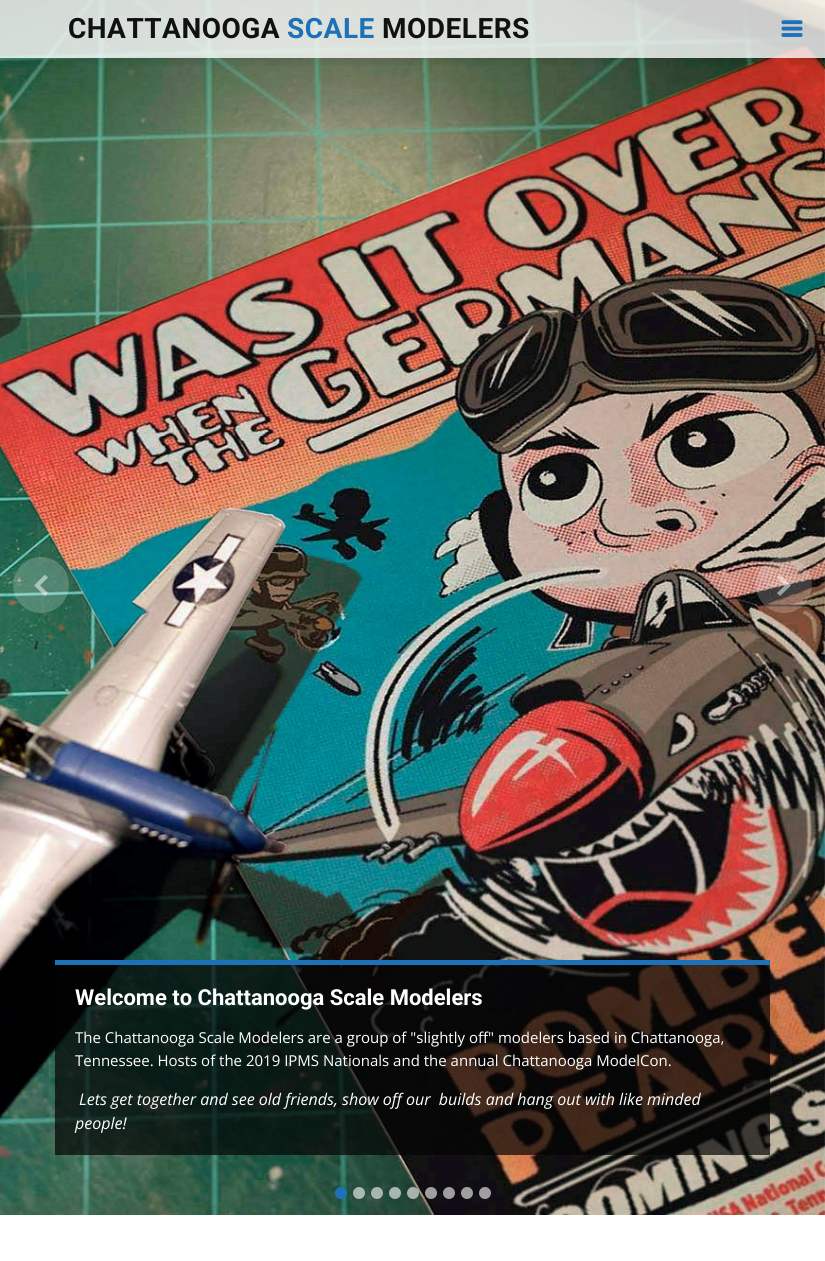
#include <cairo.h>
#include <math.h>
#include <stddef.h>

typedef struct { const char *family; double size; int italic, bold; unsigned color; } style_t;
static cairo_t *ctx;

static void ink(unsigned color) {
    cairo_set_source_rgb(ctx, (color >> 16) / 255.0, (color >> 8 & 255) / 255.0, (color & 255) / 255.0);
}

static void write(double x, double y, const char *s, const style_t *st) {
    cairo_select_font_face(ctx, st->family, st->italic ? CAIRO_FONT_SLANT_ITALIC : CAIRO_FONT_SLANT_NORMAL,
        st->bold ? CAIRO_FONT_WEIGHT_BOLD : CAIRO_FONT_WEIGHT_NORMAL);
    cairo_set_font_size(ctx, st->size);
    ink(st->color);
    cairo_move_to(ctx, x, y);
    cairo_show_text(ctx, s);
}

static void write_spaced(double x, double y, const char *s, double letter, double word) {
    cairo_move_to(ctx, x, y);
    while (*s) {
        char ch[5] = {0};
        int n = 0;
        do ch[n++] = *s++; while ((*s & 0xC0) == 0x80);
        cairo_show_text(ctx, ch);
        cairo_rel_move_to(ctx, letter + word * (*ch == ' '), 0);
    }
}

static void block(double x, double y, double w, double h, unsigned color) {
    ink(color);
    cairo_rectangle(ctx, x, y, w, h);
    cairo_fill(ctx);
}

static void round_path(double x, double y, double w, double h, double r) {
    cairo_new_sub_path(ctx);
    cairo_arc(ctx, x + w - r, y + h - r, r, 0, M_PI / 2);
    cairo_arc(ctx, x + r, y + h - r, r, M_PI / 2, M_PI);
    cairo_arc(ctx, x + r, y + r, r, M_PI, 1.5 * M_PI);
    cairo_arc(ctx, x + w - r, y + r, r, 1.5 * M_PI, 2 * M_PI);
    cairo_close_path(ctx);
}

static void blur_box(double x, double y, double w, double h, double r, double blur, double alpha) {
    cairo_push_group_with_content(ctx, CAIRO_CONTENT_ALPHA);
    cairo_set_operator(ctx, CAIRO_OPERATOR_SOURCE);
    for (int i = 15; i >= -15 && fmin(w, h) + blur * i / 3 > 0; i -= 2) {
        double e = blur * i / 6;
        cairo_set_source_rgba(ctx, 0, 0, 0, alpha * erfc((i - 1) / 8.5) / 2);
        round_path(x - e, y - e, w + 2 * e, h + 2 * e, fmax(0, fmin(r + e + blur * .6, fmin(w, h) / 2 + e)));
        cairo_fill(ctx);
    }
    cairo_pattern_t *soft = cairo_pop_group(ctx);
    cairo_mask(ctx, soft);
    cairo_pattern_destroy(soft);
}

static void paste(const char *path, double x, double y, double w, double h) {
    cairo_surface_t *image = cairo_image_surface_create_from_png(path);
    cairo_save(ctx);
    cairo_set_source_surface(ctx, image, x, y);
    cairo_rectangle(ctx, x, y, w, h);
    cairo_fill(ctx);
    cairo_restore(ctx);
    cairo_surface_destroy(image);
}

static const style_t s1 = {"Roboto", 22, 0, 1, 0xffffff};
static const style_t s2 = {"Open Sans", 15, 0, 0, 0xffffff};
static const style_t s3 = {"Open Sans", 16, 1, 0, 0xffffff};

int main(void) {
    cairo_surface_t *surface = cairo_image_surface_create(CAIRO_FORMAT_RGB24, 825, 1261);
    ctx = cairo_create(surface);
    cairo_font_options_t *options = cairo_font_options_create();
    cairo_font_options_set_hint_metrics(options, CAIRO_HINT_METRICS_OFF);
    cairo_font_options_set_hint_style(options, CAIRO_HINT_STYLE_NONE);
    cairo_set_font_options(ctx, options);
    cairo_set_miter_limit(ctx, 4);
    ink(0xffffff);
    cairo_paint(ctx);
    paste("pic1.png", 0, 0, 825, 1215);
    cairo_save(ctx);
    cairo_rectangle(ctx, 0, 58, 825, 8);
    cairo_clip(ctx);
    ink(0x000000);
    blur_box(0, 2, 825, 58, 0, 7.5, 0.1);
    cairo_restore(ctx);
    cairo_set_source_rgba(ctx, 1, 1, 1, 0.8);
    cairo_rectangle(ctx, 0, 0, 825, 58);
    cairo_fill(ctx);
    cairo_select_font_face(ctx, "Roboto", CAIRO_FONT_SLANT_NORMAL, CAIRO_FONT_WEIGHT_BOLD);
    cairo_set_font_size(ctx, 28);
    ink(0x111111);
    write_spaced(68, 38, "CHATTANOOGA", 0.5, 0);
    ink(0x1d71b8);
    write_spaced(287, 38, "SCALE", 0.5, 0);
    ink(0x111111);
    write_spaced(382, 38, "MODELERS", 0.5, 0);
    cairo_set_source_rgba(ctx, 1, 1, 1, 0.2);
    cairo_new_path(ctx);
    cairo_arc(ctx, 41, 585, 28, 0, 2 * M_PI);
    cairo_fill(ctx);
    cairo_set_source_rgba(ctx, 1, 1, 1, 0.5);
    cairo_new_path(ctx);
    cairo_move_to(ctx, 45, 574.5);
    cairo_line_to(ctx, 34, 585.5);
    cairo_line_to(ctx, 45, 596);
    cairo_line_to(ctx, 48, 593);
    cairo_line_to(ctx, 40, 585.5);
    cairo_line_to(ctx, 48, 577.5);
    cairo_close_path(ctx);
    cairo_fill(ctx);
    cairo_set_source_rgba(ctx, 1, 1, 1, 0.2);
    cairo_arc(ctx, 784, 585, 28, 0, 2 * M_PI);
    cairo_fill(ctx);
    cairo_set_source_rgba(ctx, 1, 1, 1, 0.5);
    cairo_new_path(ctx);
    cairo_move_to(ctx, 780, 596);
    cairo_line_to(ctx, 791, 585.5);
    cairo_line_to(ctx, 780, 574.5);
    cairo_line_to(ctx, 777, 577.5);
    cairo_line_to(ctx, 785, 585.5);
    cairo_line_to(ctx, 777, 593);
    cairo_close_path(ctx);
    cairo_fill(ctx);
    ink(0x1d71b8);
    cairo_arc(ctx, 341, 1193, 6, 0, 2 * M_PI);
    cairo_fill(ctx);
    cairo_set_source_rgba(ctx, 1, 1, 1, 0.6);
    cairo_arc(ctx, 359, 1193, 6, 0, 2 * M_PI);
    cairo_fill(ctx);
    cairo_arc(ctx, 377, 1193, 6, 0, 2 * M_PI);
    cairo_fill(ctx);
    cairo_arc(ctx, 395, 1193, 6, 0, 2 * M_PI);
    cairo_fill(ctx);
    cairo_arc(ctx, 413, 1193, 6, 0, 2 * M_PI);
    cairo_fill(ctx);
    cairo_arc(ctx, 431, 1193, 6, 0, 2 * M_PI);
    cairo_fill(ctx);
    cairo_arc(ctx, 449, 1193, 6, 0, 2 * M_PI);
    cairo_fill(ctx);
    cairo_arc(ctx, 467, 1193, 6, 0, 2 * M_PI);
    cairo_fill(ctx);
    cairo_arc(ctx, 485, 1193, 6, 0, 2 * M_PI);
    cairo_fill(ctx);
    cairo_set_source_rgba(ctx, 0.016, 0.016, 0.016, 0.7);
    cairo_rectangle(ctx, 55, 965, 715, 190);
    cairo_fill(ctx);
    block(55, 960, 715, 5, 0x1d71b8);
    write(75, 1005, "Welcome to Chattanooga Scale Modelers", &s1);
    write(75, 1043, "The Chattanooga Scale Modelers are a group of \"slightly off\" modelers based in Chattanooga,", &s2);
    write(75, 1066, "Tennessee. Hosts of the 2019 IPMS Nationals and the annual Chattanooga ModelCon.", &s2);
    write(79, 1105, "Lets get together and see old friends, show off our  builds and hang out with like minded", &s3);
    write(75, 1129, "people!", &s3);
    paste("pic2.png", 781, 20, 22, 17);
    cairo_surface_write_to_png(surface, "screenshot.png");
    cairo_font_options_destroy(options);
    cairo_destroy(ctx);
    cairo_surface_destroy(surface);
    return 0;
}
